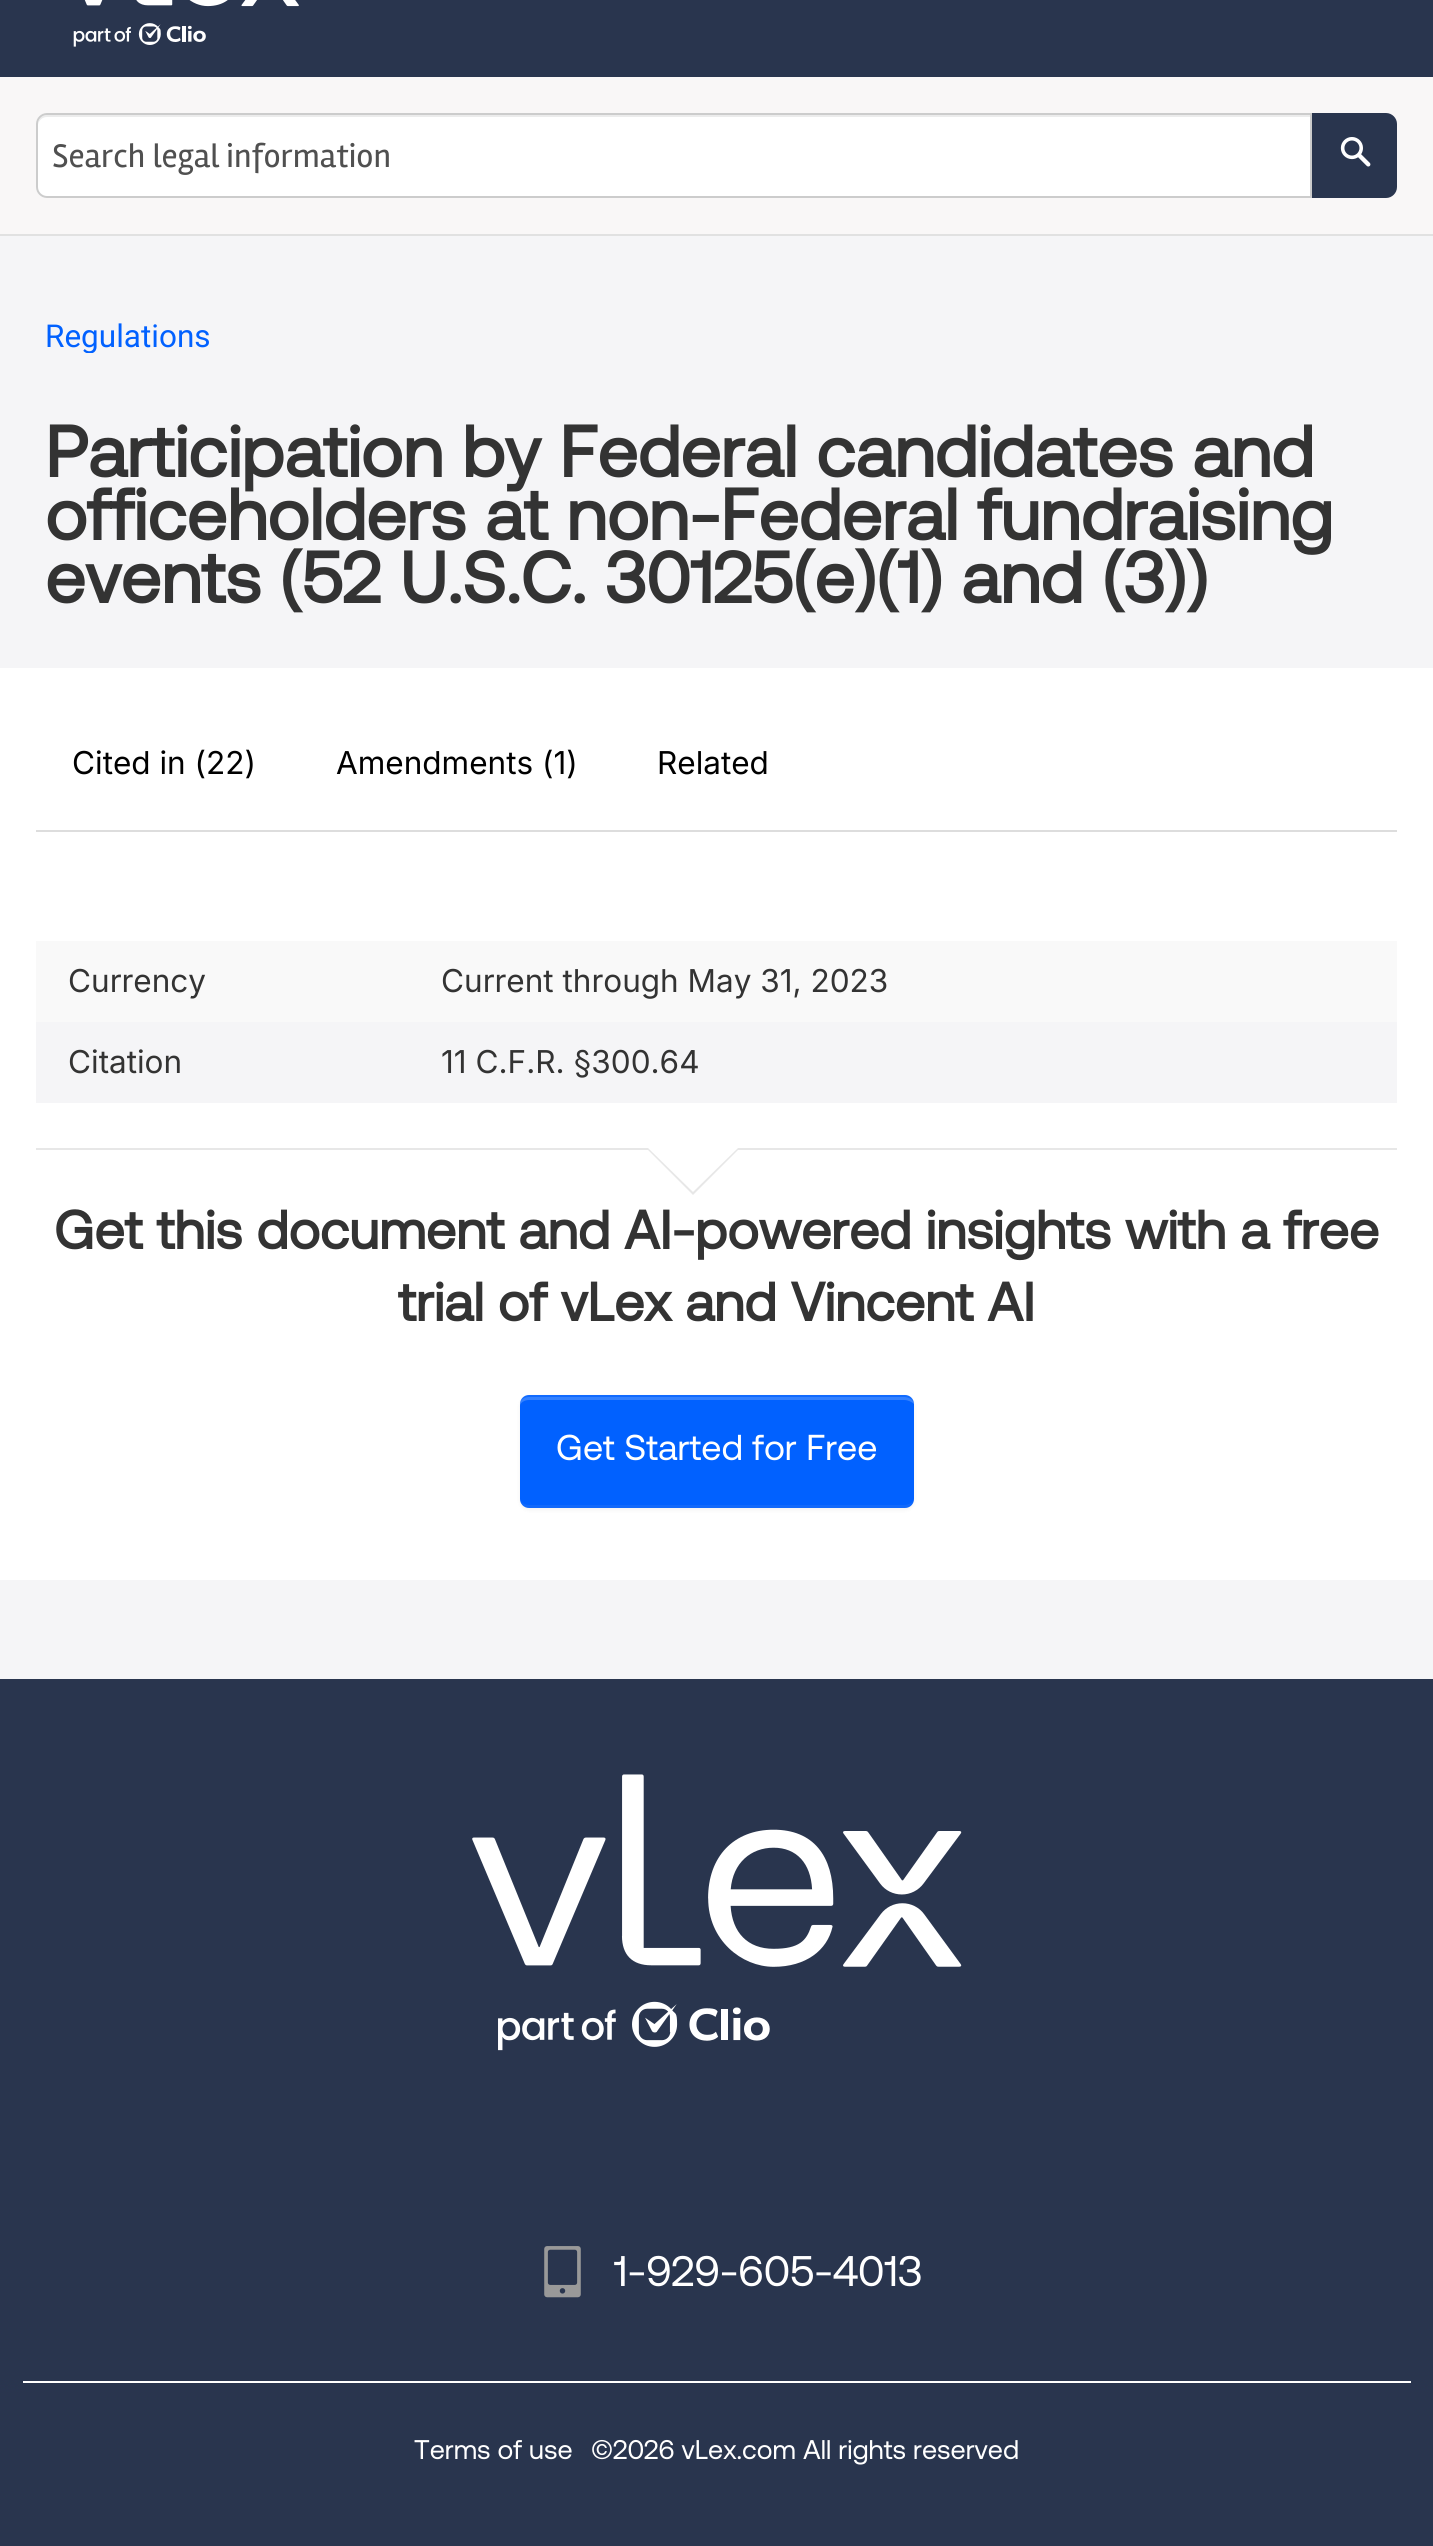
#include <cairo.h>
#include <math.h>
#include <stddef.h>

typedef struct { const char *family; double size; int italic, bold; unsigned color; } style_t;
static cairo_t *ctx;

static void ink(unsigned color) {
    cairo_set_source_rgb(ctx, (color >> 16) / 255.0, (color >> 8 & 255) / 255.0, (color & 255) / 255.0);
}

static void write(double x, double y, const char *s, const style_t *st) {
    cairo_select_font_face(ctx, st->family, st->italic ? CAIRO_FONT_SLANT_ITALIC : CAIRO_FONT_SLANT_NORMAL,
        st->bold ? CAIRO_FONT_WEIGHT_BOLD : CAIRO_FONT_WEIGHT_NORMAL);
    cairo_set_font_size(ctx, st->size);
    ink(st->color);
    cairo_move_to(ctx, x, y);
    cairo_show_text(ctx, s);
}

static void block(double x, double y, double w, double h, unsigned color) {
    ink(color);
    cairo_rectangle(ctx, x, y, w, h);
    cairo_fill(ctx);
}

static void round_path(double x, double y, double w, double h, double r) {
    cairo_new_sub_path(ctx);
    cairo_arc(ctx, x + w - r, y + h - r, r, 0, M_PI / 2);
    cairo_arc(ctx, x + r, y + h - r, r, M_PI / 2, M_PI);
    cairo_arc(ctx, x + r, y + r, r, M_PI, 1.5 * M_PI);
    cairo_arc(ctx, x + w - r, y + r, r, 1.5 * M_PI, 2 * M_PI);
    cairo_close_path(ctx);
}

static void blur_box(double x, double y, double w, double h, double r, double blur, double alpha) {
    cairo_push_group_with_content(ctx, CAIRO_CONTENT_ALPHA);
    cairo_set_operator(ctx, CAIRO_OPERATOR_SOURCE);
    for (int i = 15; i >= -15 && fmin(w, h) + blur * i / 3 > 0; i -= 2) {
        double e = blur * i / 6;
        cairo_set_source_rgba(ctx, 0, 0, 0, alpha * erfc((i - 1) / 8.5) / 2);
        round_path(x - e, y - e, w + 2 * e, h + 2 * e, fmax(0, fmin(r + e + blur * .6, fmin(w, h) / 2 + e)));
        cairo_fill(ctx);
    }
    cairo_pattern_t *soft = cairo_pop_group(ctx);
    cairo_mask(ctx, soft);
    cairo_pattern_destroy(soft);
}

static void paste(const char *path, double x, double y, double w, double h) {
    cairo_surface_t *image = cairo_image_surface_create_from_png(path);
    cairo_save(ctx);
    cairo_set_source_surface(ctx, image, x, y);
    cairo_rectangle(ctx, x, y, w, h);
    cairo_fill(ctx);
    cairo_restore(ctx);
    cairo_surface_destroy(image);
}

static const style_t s1 = {"Rambla", 33.75, 0, 0, 0x505050};
static const style_t s2 = {"Roboto", 31.5, 0, 0, 0x0161ff};
static const style_t s3 = {"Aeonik", 72, 0, 1, 0x333333};
static const style_t s4 = {"Inter", 31.5, 0, 0, 0x000000};
static const style_t s5 = {"Inter", 31.5, 0, 0, 0x333333};
static const style_t s6 = {"Aeonik", 54, 0, 1, 0x333333};
static const style_t s7 = {"Aeonik", 36, 0, 0, 0xffffff};
static const style_t s8 = {"Aeonik", 42.75, 0, 0, 0xffffff};
static const style_t s9 = {"Aeonik", 27, 0, 0, 0xffffff};

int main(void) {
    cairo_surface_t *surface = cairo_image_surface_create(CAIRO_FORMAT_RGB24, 1433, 2546);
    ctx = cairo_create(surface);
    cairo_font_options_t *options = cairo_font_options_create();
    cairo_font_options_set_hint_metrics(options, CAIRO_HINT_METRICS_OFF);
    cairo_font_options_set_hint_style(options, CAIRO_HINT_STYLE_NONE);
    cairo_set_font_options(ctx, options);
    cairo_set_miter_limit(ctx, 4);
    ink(0xf5f5f7);
    cairo_paint(ctx);
    block(0, 0, 1433, 77, 0x29354e);
    paste("pic1.png", 73, 0, 226, 47);
    block(0, 77, 1433, 157, 0xf9f7f7);
    block(0, 234, 1433, 2, 0xe1e1e1);
    ink(0xffffff);
    cairo_new_path(ctx);
    cairo_move_to(ctx, 47, 113);
    cairo_line_to(ctx, 1312, 113);
    cairo_line_to(ctx, 1312, 198);
    cairo_line_to(ctx, 47, 198);
    cairo_curve_to(ctx, 41, 198, 36, 193, 36, 187);
    cairo_line_to(ctx, 36, 124);
    cairo_curve_to(ctx, 36, 118, 41, 113, 47, 113);
    cairo_close_path(ctx);
    cairo_fill(ctx);
    ink(0xececec);
    cairo_new_path(ctx);
    cairo_move_to(ctx, 47, 117);
    cairo_line_to(ctx, 1310, 117);
    cairo_line_to(ctx, 1310, 115);
    cairo_line_to(ctx, 47, 115);
    cairo_curve_to(ctx, 41, 115, 38, 120, 38, 126);
    cairo_curve_to(ctx, 38, 121, 42, 117, 47, 117);
    cairo_close_path(ctx);
    cairo_fill(ctx);
    cairo_new_path(ctx);
    cairo_move_to(ctx, 47, 114);
    cairo_line_to(ctx, 1311, 114);
    cairo_line_to(ctx, 1311, 197);
    cairo_line_to(ctx, 47, 197);
    cairo_curve_to(ctx, 41.5, 197, 37, 192.5, 37, 187);
    cairo_line_to(ctx, 37, 124);
    cairo_curve_to(ctx, 37, 118.5, 41.5, 114, 47, 114);
    cairo_close_path(ctx);
    ink(0xcccccc);
    cairo_stroke(ctx);
    write(52, 167, "Search legal information", &s1);
    ink(0x29354e);
    cairo_new_path(ctx);
    cairo_move_to(ctx, 1312, 113);
    cairo_line_to(ctx, 1386, 113);
    cairo_curve_to(ctx, 1392, 113, 1397, 118, 1397, 124);
    cairo_line_to(ctx, 1397, 187);
    cairo_curve_to(ctx, 1397, 193, 1392, 198, 1386, 198);
    cairo_line_to(ctx, 1312, 198);
    cairo_close_path(ctx);
    cairo_fill(ctx);
    paste("pic2.png", 1340, 137, 31, 30);
    cairo_save(ctx);
    cairo_rectangle(ctx, 45, 313, 1343, 40);
    cairo_clip(ctx);
    write(45, 347, "Regulations", &s2);
    cairo_restore(ctx);
    write(45, 477, "Participation by Federal candidates and", &s3);
    write(45, 540, "officeholders at non-Federal fundraising", &s3);
    write(45, 603, "events (52 U.S.C. 30125(e)(1) and (3))", &s3);
    block(0, 668, 1433, 912, 0xffffff);
    block(36, 830, 1361, 2, 0xdddddd);
    write(72, 774, "Cited in (22)", &s4);
    write(336, 774, "Amendments (1)", &s4);
    write(657, 774, "Related", &s4);
    block(36, 941, 1361, 81, 0xf9f9f9);
    write(68, 992, "Currency", &s5);
    write(441, 992, "Current through May 31, 2023", &s5);
    block(36, 1022, 1361, 81, 0xf5f5f7);
    write(68, 1073, "Citation", &s5);
    write(441, 1073, "11 C.F.R. §300.64", &s5);
    block(36, 1148, 1361, 2, 0xe7e7e7);
    cairo_new_path(ctx);
    cairo_move_to(ctx, 646, 1148);
    cairo_line_to(ctx, 740, 1148);
    cairo_line_to(ctx, 693, 1195);
    cairo_close_path(ctx);
    cairo_fill(ctx);
    ink(0xffffff);
    cairo_new_path(ctx);
    cairo_move_to(ctx, 648, 1148);
    cairo_line_to(ctx, 738, 1148);
    cairo_line_to(ctx, 693, 1192);
    cairo_close_path(ctx);
    cairo_fill(ctx);
    write(54, 1249, "Get this document and AI-powered insights with a free", &s6);
    write(398, 1321, "trial of vLex and Vincent AI", &s6);
    ink(0x000000);
    blur_box(520, 1397, 394, 113, 9, 2, 0.05);
    ink(0x0161ff);
    round_path(520, 1395, 394, 113, 9);
    cairo_fill(ctx);
    cairo_set_source_rgba(ctx, 1, 1, 1, 0.2);
    cairo_new_path(ctx);
    cairo_move_to(ctx, 529, 1400);
    cairo_line_to(ctx, 904, 1400);
    cairo_curve_to(ctx, 908, 1400, 912, 1402, 914, 1404);
    cairo_curve_to(ctx, 914, 1400, 909, 1397, 904, 1397);
    cairo_line_to(ctx, 529, 1397);
    cairo_curve_to(ctx, 524, 1397, 520, 1400, 520, 1404);
    cairo_line_to(ctx, 520, 1500);
    cairo_line_to(ctx, 520, 1406);
    cairo_curve_to(ctx, 520, 1403, 524, 1400, 529, 1400);
    cairo_close_path(ctx);
    cairo_fill(ctx);
    cairo_set_source_rgba(ctx, 0.659, 0.796, 1, 0.1);
    cairo_new_path(ctx);
    cairo_move_to(ctx, 529, 1395);
    cairo_line_to(ctx, 904, 1395);
    cairo_curve_to(ctx, 907, 1395, 914, 1398, 914, 1402);
    cairo_curve_to(ctx, 912, 1399, 908, 1397, 904, 1397);
    cairo_line_to(ctx, 529, 1397);
    cairo_curve_to(ctx, 524, 1397, 520, 1400, 520, 1404);
    cairo_curve_to(ctx, 520, 1399, 524, 1395, 529, 1395);
    cairo_close_path(ctx);
    cairo_fill(ctx);
    cairo_set_source_rgba(ctx, 0.643, 0.741, 0.859, 0.1);
    cairo_new_path(ctx);
    cairo_move_to(ctx, 526, 1508);
    cairo_curve_to(ctx, 523, 1506, 520, 1502, 520, 1498);
    cairo_curve_to(ctx, 520, 1502, 524, 1505, 529, 1505);
    cairo_line_to(ctx, 904, 1505);
    cairo_curve_to(ctx, 908, 1505, 912, 1503, 914, 1500);
    cairo_curve_to(ctx, 914, 1502, 909, 1507, 907, 1508);
    cairo_close_path(ctx);
    cairo_fill(ctx);
    write(556, 1460, "Get Started for Free", &s7);
    block(0, 1679, 1433, 867, 0x29354e);
    block(23, 2381, 1388, 2, 0xffffff);
    paste("pic3.png", 472, 1774, 490, 277);
    paste("pic4.png", 544, 2246, 37, 52);
    write(614, 2286, "1-929-605-4013", &s8);
    write(414, 2459, "Terms of use", &s9);
    write(591, 2459, "©2026 vLex.com All rights reserved", &s9);
    cairo_surface_write_to_png(surface, "screenshot.png");
    cairo_font_options_destroy(options);
    cairo_destroy(ctx);
    cairo_surface_destroy(surface);
    return 0;
}
